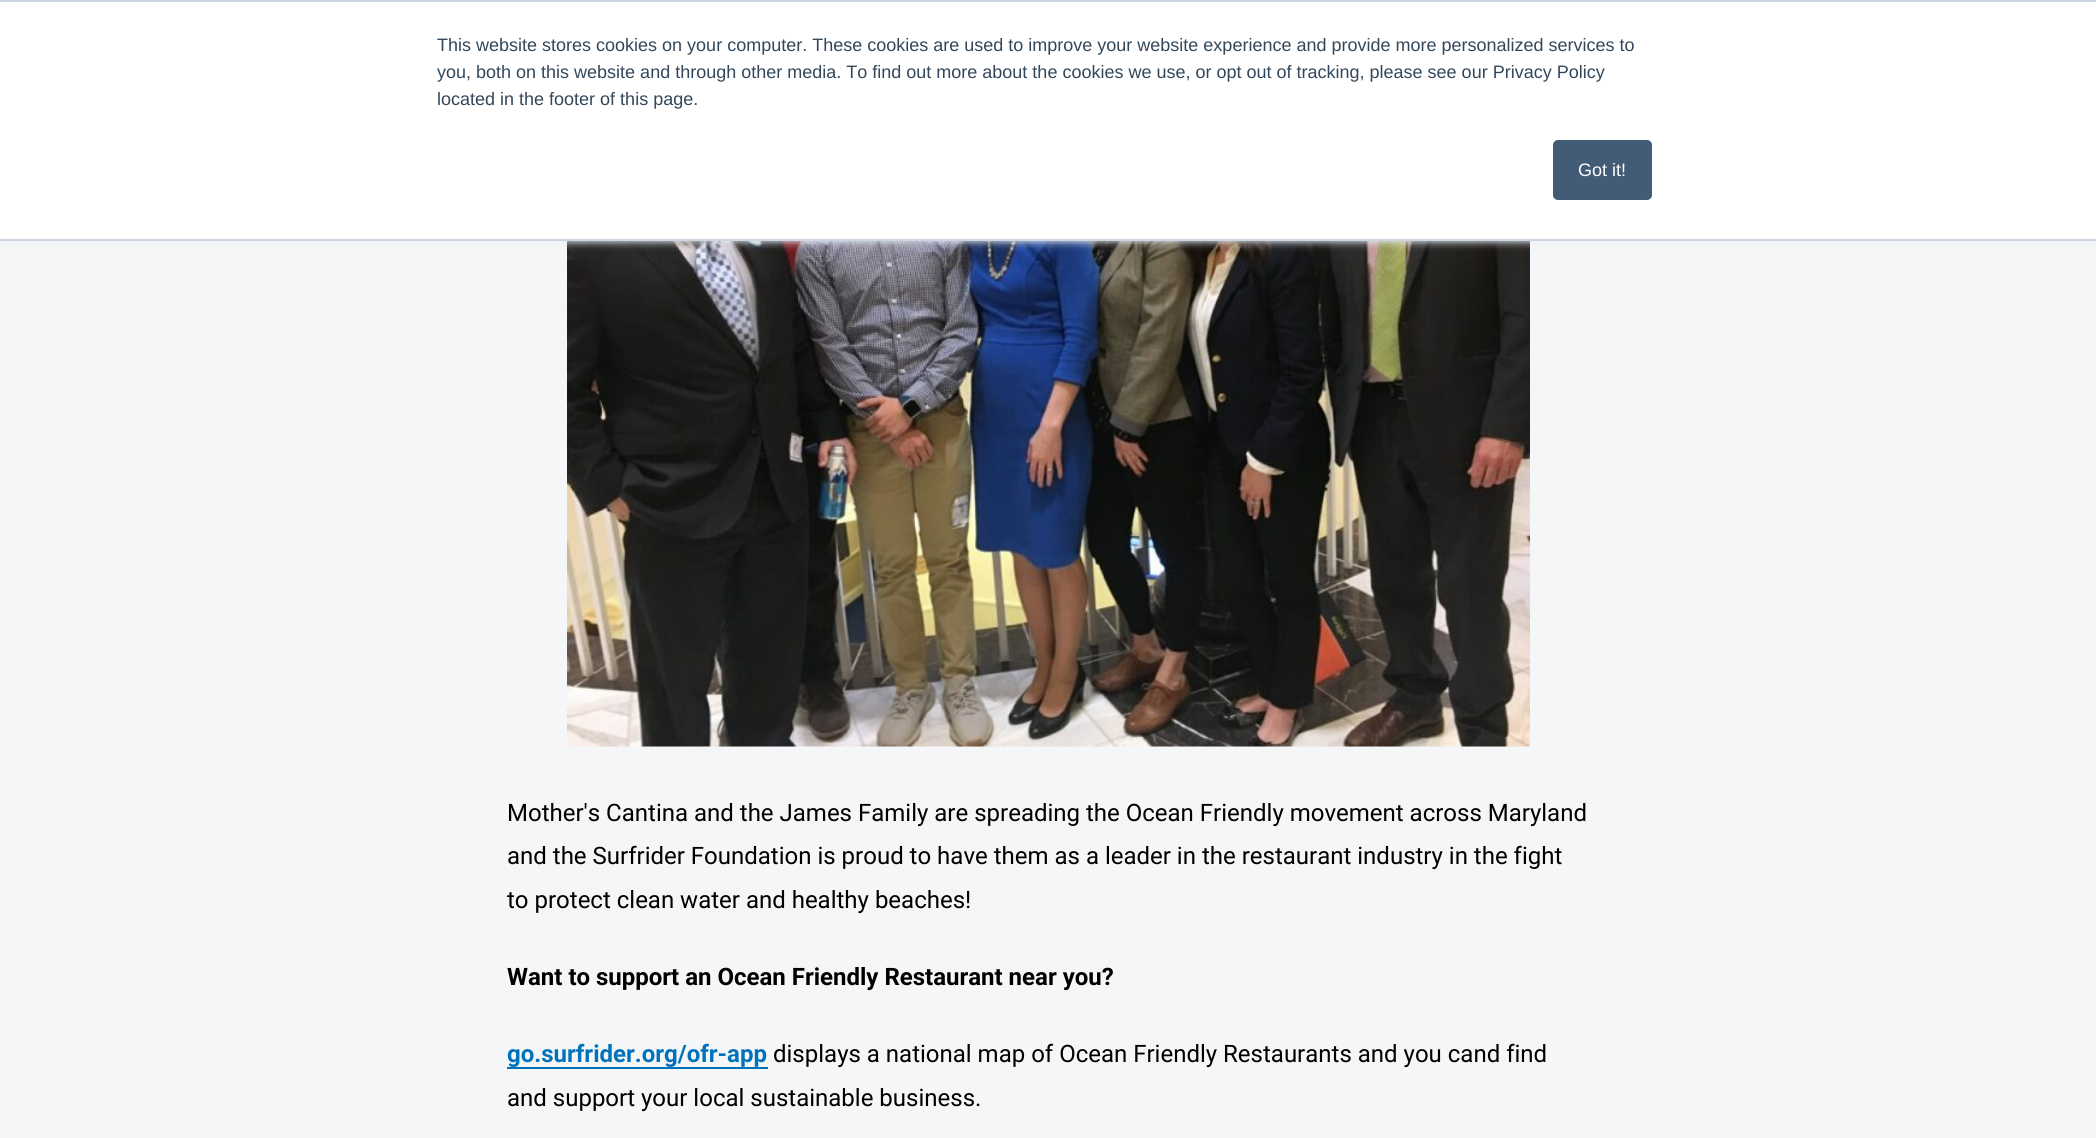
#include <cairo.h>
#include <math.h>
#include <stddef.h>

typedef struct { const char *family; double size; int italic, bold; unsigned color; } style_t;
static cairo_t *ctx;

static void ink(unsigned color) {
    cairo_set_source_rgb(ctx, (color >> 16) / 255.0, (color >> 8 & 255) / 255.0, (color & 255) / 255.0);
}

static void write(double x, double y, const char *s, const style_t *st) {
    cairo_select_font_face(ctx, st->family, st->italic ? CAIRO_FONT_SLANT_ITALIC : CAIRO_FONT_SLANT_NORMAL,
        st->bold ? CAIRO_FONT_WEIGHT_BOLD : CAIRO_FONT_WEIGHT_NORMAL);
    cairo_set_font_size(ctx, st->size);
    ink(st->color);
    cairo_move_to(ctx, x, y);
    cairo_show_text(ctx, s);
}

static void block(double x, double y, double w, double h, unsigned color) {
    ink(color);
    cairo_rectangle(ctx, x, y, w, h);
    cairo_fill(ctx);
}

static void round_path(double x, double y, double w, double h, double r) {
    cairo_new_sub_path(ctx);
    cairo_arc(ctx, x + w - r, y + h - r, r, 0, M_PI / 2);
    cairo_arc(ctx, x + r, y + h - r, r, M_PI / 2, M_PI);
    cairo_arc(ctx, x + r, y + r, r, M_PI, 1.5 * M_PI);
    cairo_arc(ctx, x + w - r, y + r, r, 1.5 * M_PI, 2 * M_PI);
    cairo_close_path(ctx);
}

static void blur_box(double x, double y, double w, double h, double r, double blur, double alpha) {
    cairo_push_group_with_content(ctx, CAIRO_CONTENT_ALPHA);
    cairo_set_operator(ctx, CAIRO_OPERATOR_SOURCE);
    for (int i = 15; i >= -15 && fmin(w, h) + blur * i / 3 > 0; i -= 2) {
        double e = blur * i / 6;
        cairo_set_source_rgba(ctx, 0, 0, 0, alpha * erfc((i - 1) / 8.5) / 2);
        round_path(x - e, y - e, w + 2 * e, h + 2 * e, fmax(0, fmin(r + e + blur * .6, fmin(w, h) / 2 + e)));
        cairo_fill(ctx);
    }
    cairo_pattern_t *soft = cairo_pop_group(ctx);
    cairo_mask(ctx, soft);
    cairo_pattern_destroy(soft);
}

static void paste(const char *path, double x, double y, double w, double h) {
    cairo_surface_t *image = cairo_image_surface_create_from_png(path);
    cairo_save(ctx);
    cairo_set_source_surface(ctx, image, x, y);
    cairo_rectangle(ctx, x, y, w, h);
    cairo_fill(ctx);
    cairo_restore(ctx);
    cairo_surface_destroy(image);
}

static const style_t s1 = {"Liberation Sans", 18, 0, 0, 0x33475b};
static const style_t s2 = {"Liberation Sans", 18, 0, 0, 0xffffff};
static const style_t s3 = {"Roboto", 24, 0, 0, 0x000000};
static const style_t s4 = {"Roboto", 24, 0, 1, 0x000000};
static const style_t s5 = {"Roboto", 24, 0, 1, 0x0072bc};

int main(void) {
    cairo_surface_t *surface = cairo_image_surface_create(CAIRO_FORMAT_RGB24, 2096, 1138);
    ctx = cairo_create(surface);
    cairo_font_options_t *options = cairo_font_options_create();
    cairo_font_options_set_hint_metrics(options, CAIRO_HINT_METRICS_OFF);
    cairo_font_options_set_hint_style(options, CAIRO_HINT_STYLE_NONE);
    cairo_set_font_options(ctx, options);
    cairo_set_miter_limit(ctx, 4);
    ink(0xf5f6f7);
    cairo_paint(ctx);
    paste("pic1.png", 567, 241, 963, 506);
    ink(0xeaf0f6);
    blur_box(0, 2, 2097, 240, 0, 4, 1);
    block(0, 2, 2096, 237, 0xffffff);
    block(0, 0, 2096, 2, 0xcbd6e2);
    block(0, 239, 2096, 2, 0xcbd6e2);
    write(437, 51, "This website stores cookies on your computer. These cookies are used to improve your website experience and provide more personalized services to", &s1);
    write(437, 78, "you, both on this website and through other media. To find out more about the cookies we use, or opt out of tracking, please see our Privacy Policy", &s1);
    write(437, 105, "located in the footer of this page.", &s1);
    ink(0x425b76);
    round_path(1554, 141, 97, 58, 4);
    cairo_fill_preserve(ctx);
    cairo_stroke(ctx);
    write(1578, 176, "Got it!", &s2);
    write(507, 821, "Mother's Cantina and the James Family are spreading the Ocean Friendly movement across Maryland", &s3);
    write(507, 864, "and the Surfrider Foundation is proud to have them as a leader in the restaurant industry in the fight", &s3);
    write(507, 908, "to protect clean water and healthy beaches!", &s3);
    write(507, 985, "Want to support an Ocean Friendly Restaurant near you?", &s4);
    write(507, 1062, "go.surfrider.org/ofr-app", &s5);
    block(507, 1067, 261, 2, 0x0072bc);
    write(773, 1062, "displays a national map of Ocean Friendly Restaurants and you cand find", &s3);
    write(507, 1106, "and support your local sustainable business.", &s3);
    cairo_surface_write_to_png(surface, "screenshot.png");
    cairo_font_options_destroy(options);
    cairo_destroy(ctx);
    cairo_surface_destroy(surface);
    return 0;
}
